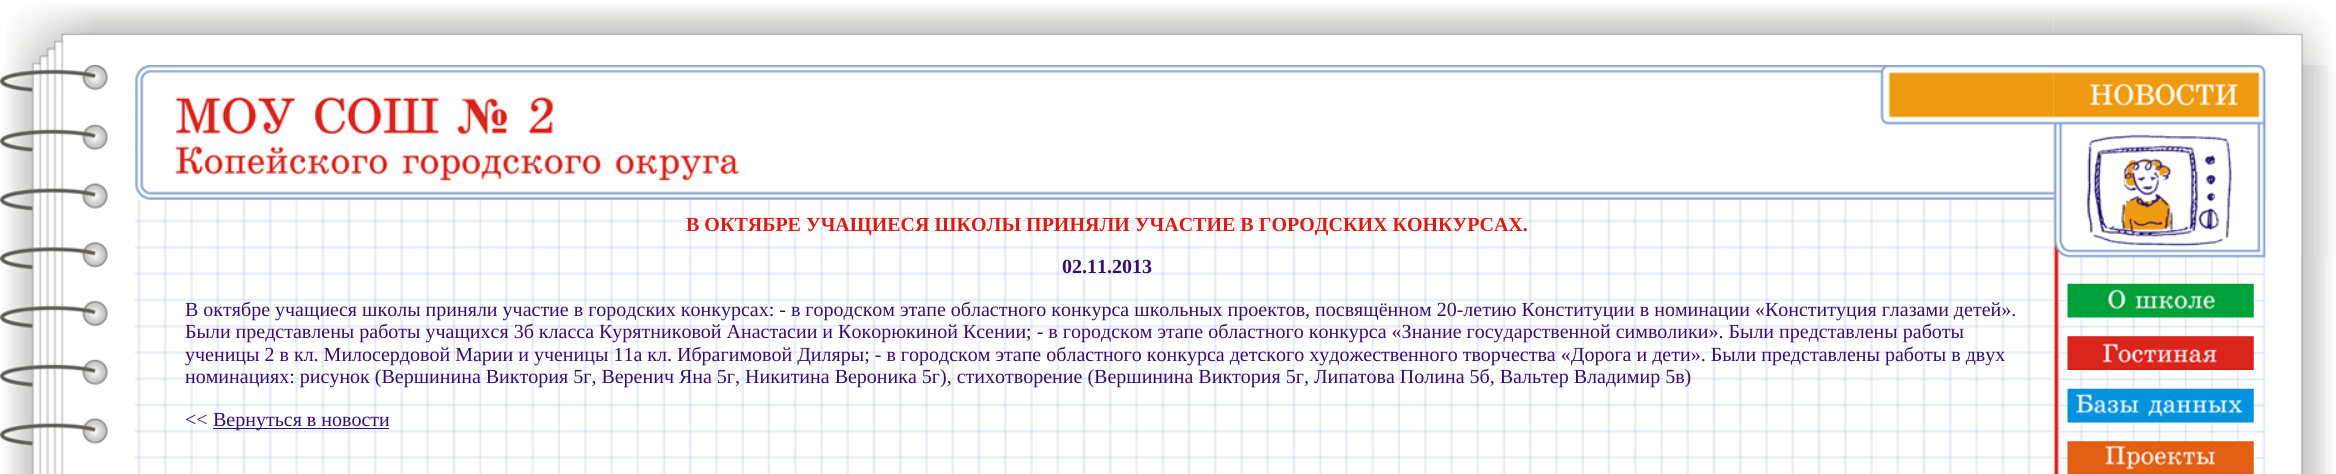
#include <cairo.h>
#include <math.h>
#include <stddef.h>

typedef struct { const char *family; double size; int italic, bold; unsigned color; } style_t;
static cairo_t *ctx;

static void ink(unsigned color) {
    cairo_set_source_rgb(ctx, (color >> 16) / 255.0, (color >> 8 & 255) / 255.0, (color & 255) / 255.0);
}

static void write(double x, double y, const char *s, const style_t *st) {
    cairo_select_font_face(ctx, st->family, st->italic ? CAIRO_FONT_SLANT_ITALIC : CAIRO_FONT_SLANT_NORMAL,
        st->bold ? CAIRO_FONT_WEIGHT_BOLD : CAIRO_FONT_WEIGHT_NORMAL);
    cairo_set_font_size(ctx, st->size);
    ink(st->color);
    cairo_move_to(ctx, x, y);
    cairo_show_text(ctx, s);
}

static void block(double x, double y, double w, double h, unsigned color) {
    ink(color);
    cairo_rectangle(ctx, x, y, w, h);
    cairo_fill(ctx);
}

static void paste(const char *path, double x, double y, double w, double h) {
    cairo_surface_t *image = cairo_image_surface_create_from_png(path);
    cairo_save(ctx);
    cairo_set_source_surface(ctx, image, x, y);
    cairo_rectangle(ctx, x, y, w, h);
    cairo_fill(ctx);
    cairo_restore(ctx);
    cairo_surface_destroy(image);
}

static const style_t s1 = {"Liberation Serif", 20, 0, 1, 0xd91d14};
static const style_t s2 = {"Liberation Serif", 20, 0, 1, 0x340e70};
static const style_t s3 = {"Liberation Serif", 20, 0, 0, 0x340e70};

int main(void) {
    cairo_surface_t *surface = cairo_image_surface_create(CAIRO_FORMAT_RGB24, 2336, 474);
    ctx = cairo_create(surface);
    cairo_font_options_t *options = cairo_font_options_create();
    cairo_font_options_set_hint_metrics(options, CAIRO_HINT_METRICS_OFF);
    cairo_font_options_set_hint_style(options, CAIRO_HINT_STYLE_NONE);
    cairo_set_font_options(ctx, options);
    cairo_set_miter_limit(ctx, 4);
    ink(0xffffff);
    cairo_paint(ctx);
    paste("pic1.png", 6, 3, 129, 62);
    paste("pic2.png", 135, 3, 1919, 33);
    paste("pic3.png", 2053, 3, 279, 62);
    paste("pic4.png", 0, 94, 108, 380);
    paste("pic5.png", 0, 65, 108, 29);
    paste("pic6.png", 135, 65, 1919, 409);
    paste("pic7.png", 150, 65, 1904, 135);
    paste("pic8.png", 135, 65, 15, 135);
    paste("pic9.png", 175, 97, 565, 85);
    paste("pic11.png", 2053, 65, 280, 409);
    paste("pic10.png", 1880, 65, 174, 60);
    write(686, 231, "В ОКТЯБРЕ УЧАЩИЕСЯ ШКОЛЫ ПРИНЯЛИ УЧАСТИЕ В ГОРОДСКИХ КОНКУРСАХ.", &s1);
    write(1062, 273, "02.11.2013", &s2);
    write(185, 316, "В октябре учащиеся школы приняли участие в городских конкурсах: - в городском этапе областного конкурса школьных проектов, посвящённом 20-летию Конституции в номинации «Конституция глазами детей».", &s3);
    write(185, 338, "Были представлены работы учащихся 3б класса Курятниковой Анастасии и Кокорюкиной Ксении; - в городском этапе областного конкурса «Знание государственной символики». Были представлены работы", &s3);
    write(185, 361, "ученицы 2 в кл. Милосердовой Марии и ученицы 11а кл. Ибрагимовой Диляры; - в городском этапе областного конкурса детского художественного творчества «Дорога и дети». Были представлены работы в двух", &s3);
    write(185, 383, "номинациях: рисунок (Вершинина Виктория 5г, Веренич Яна 5г, Никитина Вероника 5г), стихотворение (Вершинина Виктория 5г, Липатова Полина 5б, Вальтер Владимир 5в)", &s3);
    write(185, 426, "<<", &s3);
    block(213, 428, 176, 1, 0x340e70);
    write(213, 426, "Вернуться в новости", &s3);
    paste("pic12.png", 2053, 65, 281, 193);
    paste("pic13.png", 2067, 283, 187, 35);
    paste("pic14.png", 2067, 336, 187, 34);
    paste("pic15.png", 2067, 388, 187, 35);
    paste("pic16.png", 2067, 441, 187, 33);
    cairo_surface_write_to_png(surface, "screenshot.png");
    cairo_font_options_destroy(options);
    cairo_destroy(ctx);
    cairo_surface_destroy(surface);
    return 0;
}
